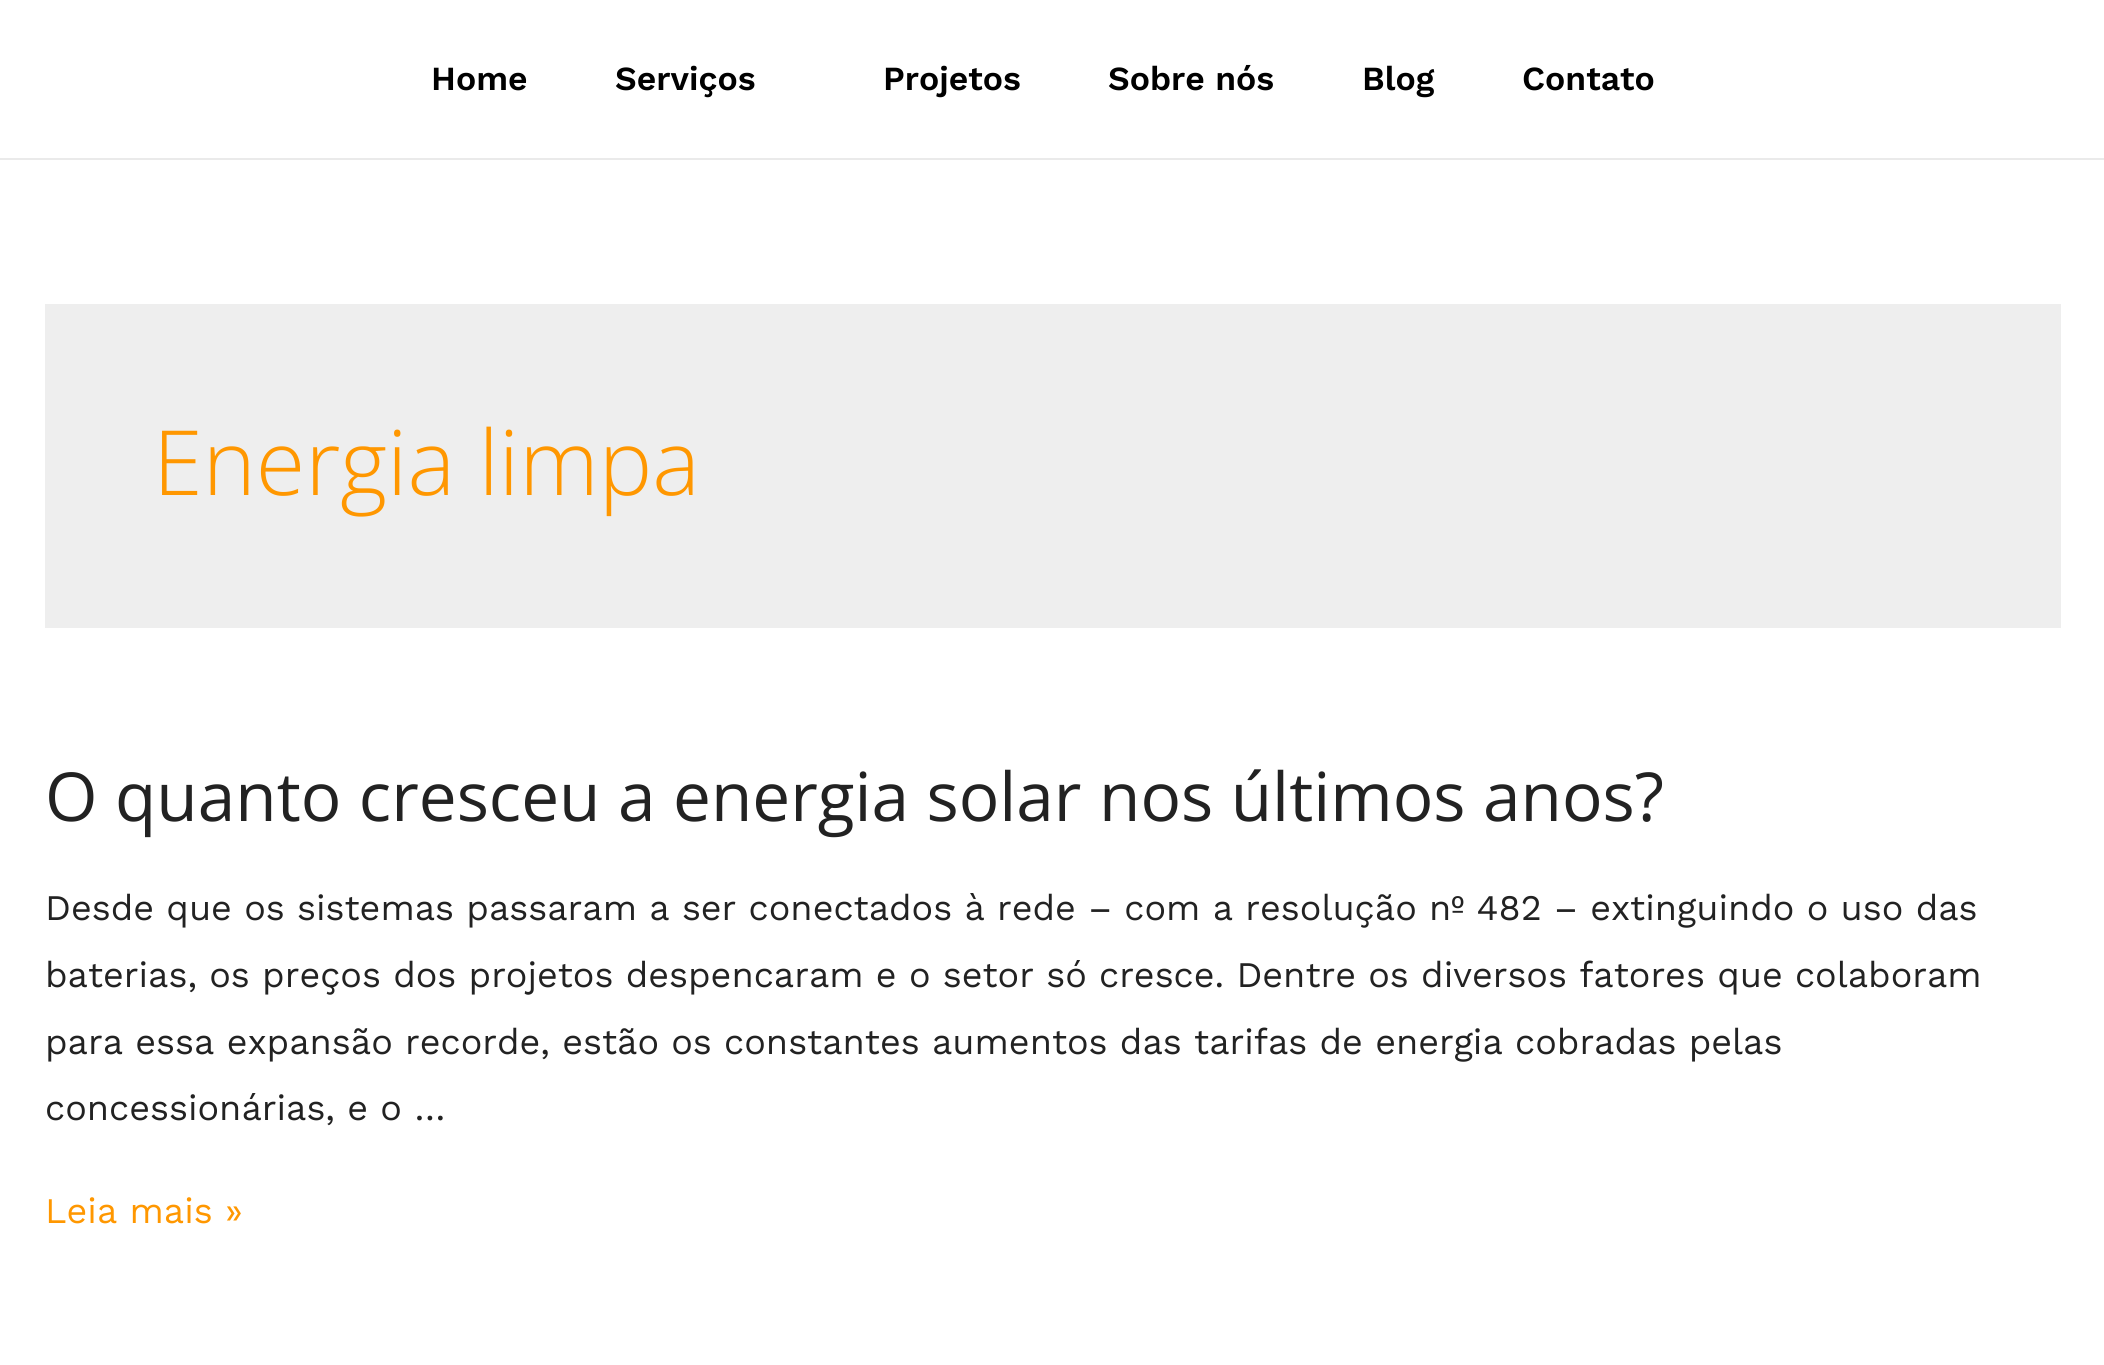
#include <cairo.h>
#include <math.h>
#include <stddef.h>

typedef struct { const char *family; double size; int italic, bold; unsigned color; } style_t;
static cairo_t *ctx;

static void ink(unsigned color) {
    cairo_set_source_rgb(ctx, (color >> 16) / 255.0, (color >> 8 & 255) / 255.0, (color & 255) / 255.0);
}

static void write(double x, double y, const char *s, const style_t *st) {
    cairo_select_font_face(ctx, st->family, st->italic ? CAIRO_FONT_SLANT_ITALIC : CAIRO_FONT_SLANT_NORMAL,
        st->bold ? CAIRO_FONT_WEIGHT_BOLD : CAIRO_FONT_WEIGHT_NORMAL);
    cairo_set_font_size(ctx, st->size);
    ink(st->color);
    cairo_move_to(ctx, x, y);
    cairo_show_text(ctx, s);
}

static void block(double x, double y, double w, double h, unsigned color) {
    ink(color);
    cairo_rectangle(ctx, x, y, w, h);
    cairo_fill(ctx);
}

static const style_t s1 = {"Work Sans SemiBold", 33.75, 0, 0, 0x000000};
static const style_t s2 = {"Open Sans Light", 90, 0, 0, 0xff9700};
static const style_t s3 = {"Open Sans", 67.5, 0, 0, 0x222222};
static const style_t s4 = {"Work Sans", 36, 0, 0, 0x222222};
static const style_t s5 = {"Work Sans", 36, 0, 0, 0xff9700};

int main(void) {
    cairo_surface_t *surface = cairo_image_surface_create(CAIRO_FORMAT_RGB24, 2104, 1365);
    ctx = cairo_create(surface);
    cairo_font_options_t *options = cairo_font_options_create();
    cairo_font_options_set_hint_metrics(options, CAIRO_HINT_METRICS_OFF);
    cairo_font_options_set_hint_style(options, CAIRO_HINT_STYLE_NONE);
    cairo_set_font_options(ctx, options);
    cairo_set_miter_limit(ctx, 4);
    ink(0xffffff);
    cairo_paint(ctx);
    block(0, 158, 2104, 2, 0xeaeaea);
    write(431, 90, "Home", &s1);
    write(615, 90, "Serviços", &s1);
    write(883, 90, "Projetos", &s1);
    write(1108, 90, "Sobre nós", &s1);
    write(1362, 90, "Blog", &s1);
    write(1522, 90, "Contato", &s1);
    block(45, 304, 2016, 324, 0xeeeeee);
    write(153, 495, "Energia limpa", &s2);
    write(45, 821, "O quanto cresceu a energia solar nos últimos anos?", &s3);
    write(45, 920, "Desde que os sistemas passaram a ser conectados à rede – com a resolução nº 482 – extinguindo o uso das", &s4);
    write(45, 987, "baterias, os preços dos projetos despencaram e o setor só cresce. Dentre os diversos fatores que colaboram", &s4);
    write(45, 1054, "para essa expansão recorde, estão os constantes aumentos das tarifas de energia cobradas pelas", &s4);
    write(45, 1120, "concessionárias, e o …", &s4);
    write(45, 1223, "Leia mais »", &s5);
    cairo_surface_write_to_png(surface, "screenshot.png");
    cairo_font_options_destroy(options);
    cairo_destroy(ctx);
    cairo_surface_destroy(surface);
    return 0;
}
